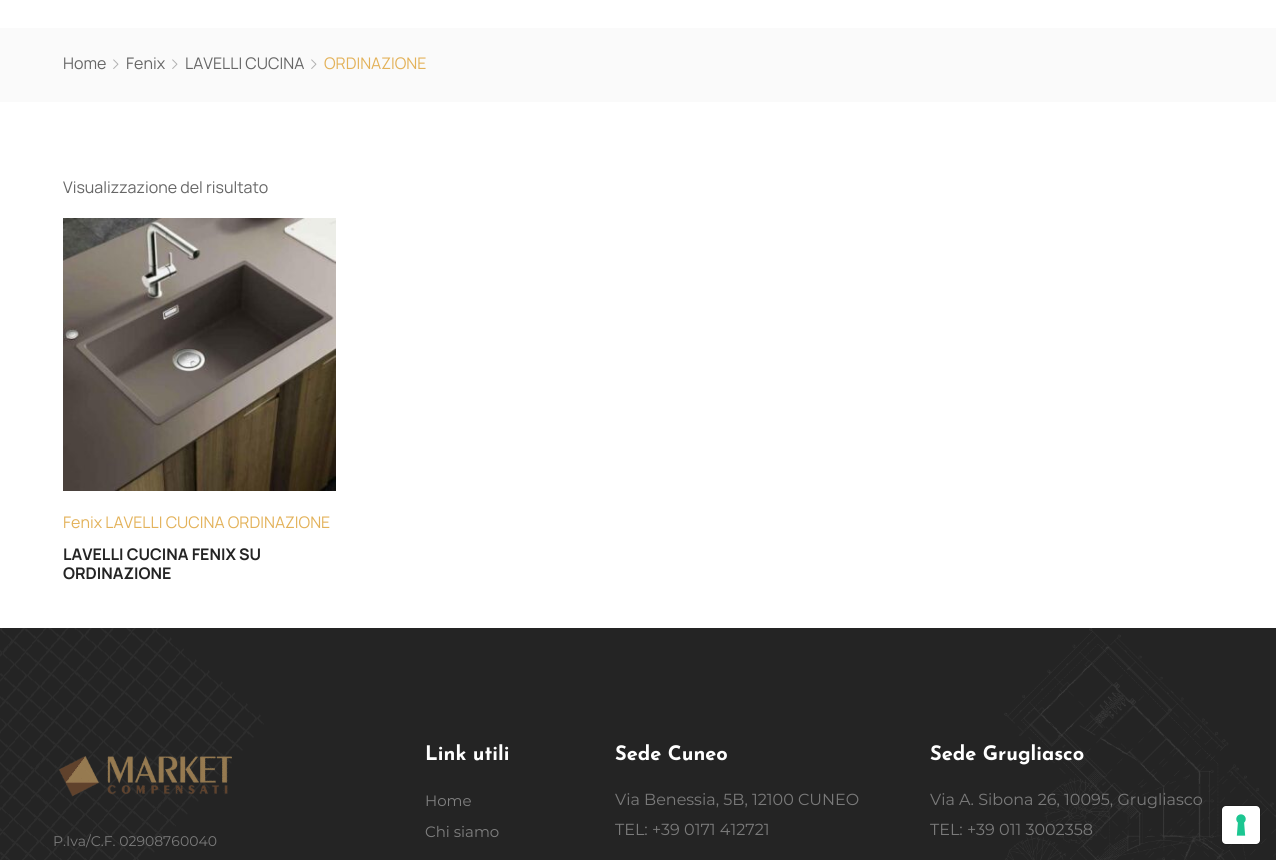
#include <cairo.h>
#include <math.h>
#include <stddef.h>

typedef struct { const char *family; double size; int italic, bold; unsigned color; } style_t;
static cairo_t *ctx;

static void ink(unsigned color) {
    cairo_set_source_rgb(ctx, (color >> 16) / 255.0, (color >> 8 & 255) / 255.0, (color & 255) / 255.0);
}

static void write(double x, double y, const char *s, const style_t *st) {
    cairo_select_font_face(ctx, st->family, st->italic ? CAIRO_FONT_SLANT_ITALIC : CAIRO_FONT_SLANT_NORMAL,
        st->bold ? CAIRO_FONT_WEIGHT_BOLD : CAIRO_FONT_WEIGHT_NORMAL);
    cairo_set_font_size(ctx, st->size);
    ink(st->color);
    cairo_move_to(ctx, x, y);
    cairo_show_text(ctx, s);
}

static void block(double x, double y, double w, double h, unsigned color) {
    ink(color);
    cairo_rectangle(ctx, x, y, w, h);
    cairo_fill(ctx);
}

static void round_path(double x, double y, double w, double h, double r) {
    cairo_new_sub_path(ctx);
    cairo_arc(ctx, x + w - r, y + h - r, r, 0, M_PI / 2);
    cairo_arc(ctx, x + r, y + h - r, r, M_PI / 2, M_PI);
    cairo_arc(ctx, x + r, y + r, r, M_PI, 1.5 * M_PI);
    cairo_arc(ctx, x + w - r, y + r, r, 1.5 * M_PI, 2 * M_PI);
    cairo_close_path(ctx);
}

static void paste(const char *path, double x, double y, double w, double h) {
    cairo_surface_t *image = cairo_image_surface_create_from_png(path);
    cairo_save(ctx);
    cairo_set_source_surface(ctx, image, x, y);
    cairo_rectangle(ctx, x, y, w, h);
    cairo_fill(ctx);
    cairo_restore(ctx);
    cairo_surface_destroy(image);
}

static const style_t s1 = {"Manrope", 16, 0, 0, 0x666666};
static const style_t s2 = {"Manrope", 16, 0, 0, 0xe3b25a};
static const style_t s3 = {"Manrope", 16, 0, 1, 0x242424};
static const style_t s4 = {"Josefin Sans", 20, 0, 1, 0xffffff};
static const style_t s5 = {"Montserrat", 15, 0, 0, 0x808080};
static const style_t s6 = {"Montserrat", 16, 0, 0, 0x7a7a7a};
static const style_t s7 = {"Montserrat", 14, 0, 0, 0x7a7a7a};

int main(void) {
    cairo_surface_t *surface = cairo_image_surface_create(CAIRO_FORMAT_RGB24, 1276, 860);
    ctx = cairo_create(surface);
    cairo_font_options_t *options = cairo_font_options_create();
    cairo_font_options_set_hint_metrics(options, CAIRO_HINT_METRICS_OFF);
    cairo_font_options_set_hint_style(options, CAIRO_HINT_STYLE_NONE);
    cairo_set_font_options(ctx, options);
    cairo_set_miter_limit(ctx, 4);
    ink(0xffffff);
    cairo_paint(ctx);
    block(0, 28, 1276, 74, 0xfafafa);
    write(63, 69, "Home", &s1);
    paste("pic1.png", 113, 59, 6, 10);
    write(126, 69, "Fenix", &s1);
    paste("pic1.png", 172, 59, 6, 10);
    write(185, 69, "LAVELLI CUCINA", &s1);
    paste("pic1.png", 311, 59, 6, 10);
    write(324, 69, "ORDINAZIONE", &s2);
    write(63, 193, "Visualizzazione del risultato", &s1);
    paste("pic2.png", 63, 218, 273, 273);
    write(63, 528, "Fenix LAVELLI CUCINA ORDINAZIONE", &s2);
    write(63, 560, "LAVELLI CUCINA FENIX SU", &s3);
    write(63, 579, "ORDINAZIONE", &s3);
    block(0, 628, 1276, 232, 0x242424);
    paste("pic3.png", 0, 628, 264, 232);
    write(425, 760, "Link utili", &s4);
    write(425, 806, "Home", &s5);
    write(425, 837, "Chi siamo", &s5);
    write(615, 760, "Sede Cuneo", &s4);
    write(615, 805, "Via Benessia, 5B, 12100 CUNEO", &s6);
    write(615, 835, "TEL: +39 0171 412721", &s6);
    paste("pic4.png", 1004, 628, 272, 232);
    write(930, 760, "Sede Grugliasco", &s4);
    write(930, 805, "Via A. Sibona 26, 10095, Grugliasco", &s6);
    write(930, 835, "TEL: +39 011 3002358", &s6);
    paste("pic5.png", 59, 756, 173, 41);
    write(53, 846, "P.Iva/C.F. 02908760040", &s7);
    round_path(1221.5, 805.5, 39, 39, 4.5);
    cairo_set_source_rgba(ctx, 0, 0, 0, 0.15);
    cairo_set_line_width(ctx, 1);
    cairo_stroke(ctx);
    ink(0xffffff);
    round_path(1222, 806, 38, 38, 4);
    cairo_fill(ctx);
    paste("pic6.png", 1236, 814, 10, 22);
    cairo_surface_write_to_png(surface, "screenshot.png");
    cairo_font_options_destroy(options);
    cairo_destroy(ctx);
    cairo_surface_destroy(surface);
    return 0;
}
